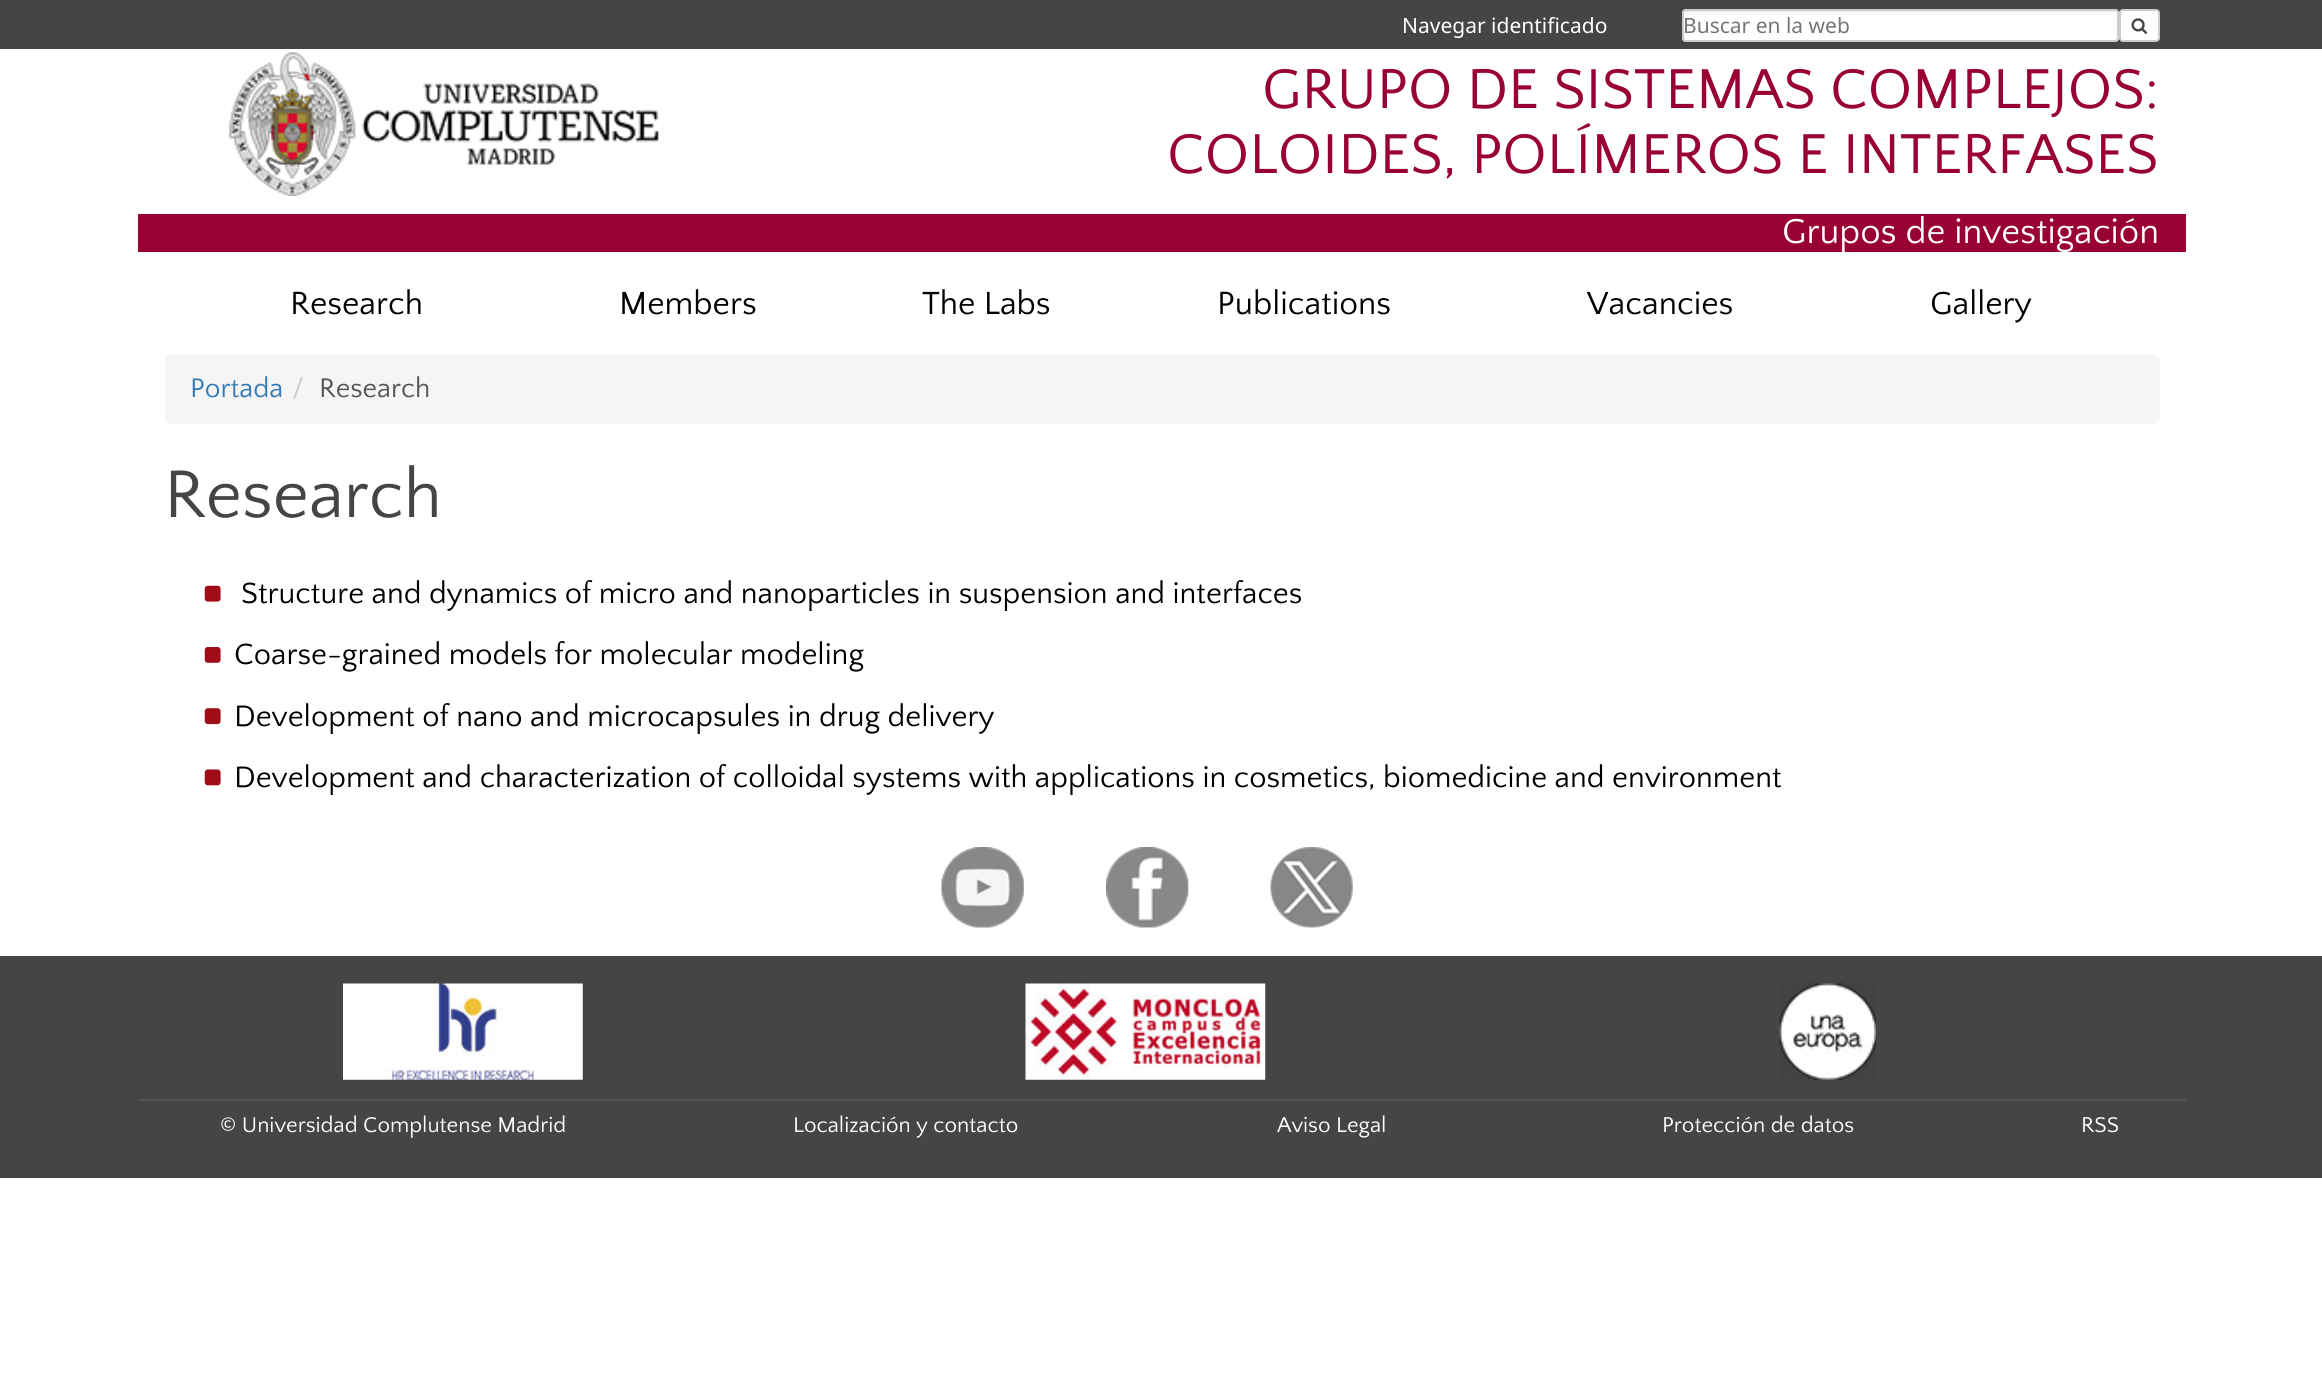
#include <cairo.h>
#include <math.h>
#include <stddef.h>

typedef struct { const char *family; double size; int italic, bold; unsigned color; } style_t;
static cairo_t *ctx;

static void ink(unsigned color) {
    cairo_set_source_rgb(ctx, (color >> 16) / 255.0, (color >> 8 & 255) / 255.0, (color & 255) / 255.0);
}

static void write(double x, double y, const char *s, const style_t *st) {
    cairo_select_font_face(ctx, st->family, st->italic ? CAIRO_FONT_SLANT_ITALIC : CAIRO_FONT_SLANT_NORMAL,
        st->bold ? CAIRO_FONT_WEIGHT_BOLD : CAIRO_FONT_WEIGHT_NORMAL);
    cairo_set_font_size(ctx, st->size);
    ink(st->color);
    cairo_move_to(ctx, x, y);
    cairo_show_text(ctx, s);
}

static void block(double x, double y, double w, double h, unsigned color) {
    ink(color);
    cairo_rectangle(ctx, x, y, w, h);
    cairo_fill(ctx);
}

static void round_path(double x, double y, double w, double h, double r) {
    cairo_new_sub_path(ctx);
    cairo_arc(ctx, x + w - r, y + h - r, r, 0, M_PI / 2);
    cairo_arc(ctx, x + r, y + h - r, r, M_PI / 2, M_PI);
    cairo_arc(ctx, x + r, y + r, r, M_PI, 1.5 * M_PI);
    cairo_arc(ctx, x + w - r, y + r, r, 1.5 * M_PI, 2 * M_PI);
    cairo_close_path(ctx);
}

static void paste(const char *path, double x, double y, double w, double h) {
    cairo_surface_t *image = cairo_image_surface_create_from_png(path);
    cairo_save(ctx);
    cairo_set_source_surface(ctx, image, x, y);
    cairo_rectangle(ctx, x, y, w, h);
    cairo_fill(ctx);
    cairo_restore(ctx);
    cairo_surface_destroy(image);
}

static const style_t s1 = {"Noto Sans", 21, 0, 0, 0xffffff};
static const style_t s2 = {"Noto Sans", 21, 0, 0, 0x757575};
static const style_t s3 = {"Quattrocento Sans", 58.75, 0, 0, 0x990033};
static const style_t s4 = {"Quattrocento Sans", 36.4, 0, 0, 0xffffff};
static const style_t s5 = {"Quattrocento Sans", 33.5, 0, 0, 0x000000};
static const style_t s6 = {"Quattrocento Sans", 28, 0, 0, 0x337ab7};
static const style_t s7 = {"Quattrocento Sans", 28, 0, 0, 0xcccccc};
static const style_t s8 = {"Quattrocento Sans", 28, 0, 0, 0x555354};
static const style_t s9 = {"Quattrocento Sans", 70, 0, 0, 0x454545};
static const style_t s10 = {"Quattrocento Sans", 30.8, 0, 0, 0x000000};
static const style_t s11 = {"Quattrocento Sans", 22.4, 0, 0, 0xffffff};

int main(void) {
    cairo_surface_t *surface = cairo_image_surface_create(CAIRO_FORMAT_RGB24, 2322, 1397);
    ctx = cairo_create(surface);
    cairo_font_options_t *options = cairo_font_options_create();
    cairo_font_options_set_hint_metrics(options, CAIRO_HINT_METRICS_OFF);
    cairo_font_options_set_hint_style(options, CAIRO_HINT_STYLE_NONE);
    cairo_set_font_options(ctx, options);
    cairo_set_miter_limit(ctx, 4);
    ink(0xffffff);
    cairo_paint(ctx);
    block(0, 0, 2322, 49, 0x454545);
    write(1402, 33, "Navegar identificado", &s1);
    round_path(1682, 9, 437, 33, 4);
    cairo_fill(ctx);
    ink(0xececec);
    cairo_new_path(ctx);
    cairo_move_to(ctx, 1685, 12);
    cairo_line_to(ctx, 2116, 12);
    cairo_curve_to(ctx, 2117, 12, 2118, 13, 2118, 14);
    cairo_curve_to(ctx, 2118, 13, 2118, 11, 2116, 11);
    cairo_line_to(ctx, 1686, 11);
    cairo_line_to(ctx, 1684, 12);
    cairo_line_to(ctx, 1684, 14);
    cairo_curve_to(ctx, 1684, 13, 1684, 12, 1685, 12);
    cairo_close_path(ctx);
    cairo_fill(ctx);
    round_path(1683, 10, 435, 31, 3);
    ink(0xcccccc);
    cairo_stroke(ctx);
    write(1683, 33, "Buscar en la web", &s2);
    ink(0xffffff);
    round_path(2120, 10, 39, 31, 3);
    cairo_fill_preserve(ctx);
    ink(0xcccccc);
    cairo_stroke(ctx);
    paste("pic1.png", 2131, 18, 17, 16);
    paste("pic2.png", 228, 52, 431, 144);
    write(1262, 108, "GRUPO DE SISTEMAS COMPLEJOS:", &s3);
    write(1167, 173, "COLOIDES, POLÍMEROS E INTERFASES", &s3);
    block(138, 214, 2048, 38, 0x990033);
    write(1782, 243, "Grupos de investigación", &s4);
    write(290, 314, "Research", &s5);
    write(619, 314, "Members", &s5);
    write(922, 314, "The Labs", &s5);
    write(1217, 314, "Publications", &s5);
    write(1587, 314, "Vacancies", &s5);
    write(1930, 314, "Gallery", &s5);
    ink(0xf5f5f5);
    round_path(165, 355, 1995, 69, 7);
    cairo_fill(ctx);
    write(190, 397, "Portada", &s6);
    write(292, 397, "/", &s7);
    write(319, 397, "Research", &s8);
    write(164, 517, "Research", &s9);
    paste("pic3.png", 204, 585, 17, 17);
    write(241, 603, "Structure and dynamics of micro and nanoparticles in suspension and interfaces", &s10);
    paste("pic4.png", 204, 647, 17, 16);
    write(234, 664, "Coarse-grained models for molecular modeling", &s10);
    paste("pic5.png", 204, 708, 17, 17);
    write(234, 726, "Development of nano and microcapsules in drug delivery", &s10);
    paste("pic6.png", 204, 769, 17, 17);
    write(234, 787, "Development and characterization of colloidal systems with applications in cosmetics, biomedicine and environment", &s10);
    paste("pic7.png", 941, 847, 83, 81);
    paste("pic8.png", 1106, 847, 83, 81);
    paste("pic9.png", 1270, 847, 83, 81);
    block(0, 956, 2322, 222, 0x454545);
    paste("pic10.png", 343, 983, 240, 97);
    paste("pic11.png", 1025, 983, 241, 97);
    paste("pic12.png", 1779, 983, 97, 97);
    block(138, 1099, 2048, 2, 0x535353);
    write(220, 1132, "© Universidad Complutense Madrid", &s11);
    write(793, 1132, "Localización y contacto", &s11);
    write(1277, 1132, "Aviso Legal", &s11);
    write(1662, 1132, "Protección de datos", &s11);
    write(2081, 1132, "RSS", &s11);
    cairo_surface_write_to_png(surface, "screenshot.png");
    cairo_font_options_destroy(options);
    cairo_destroy(ctx);
    cairo_surface_destroy(surface);
    return 0;
}
